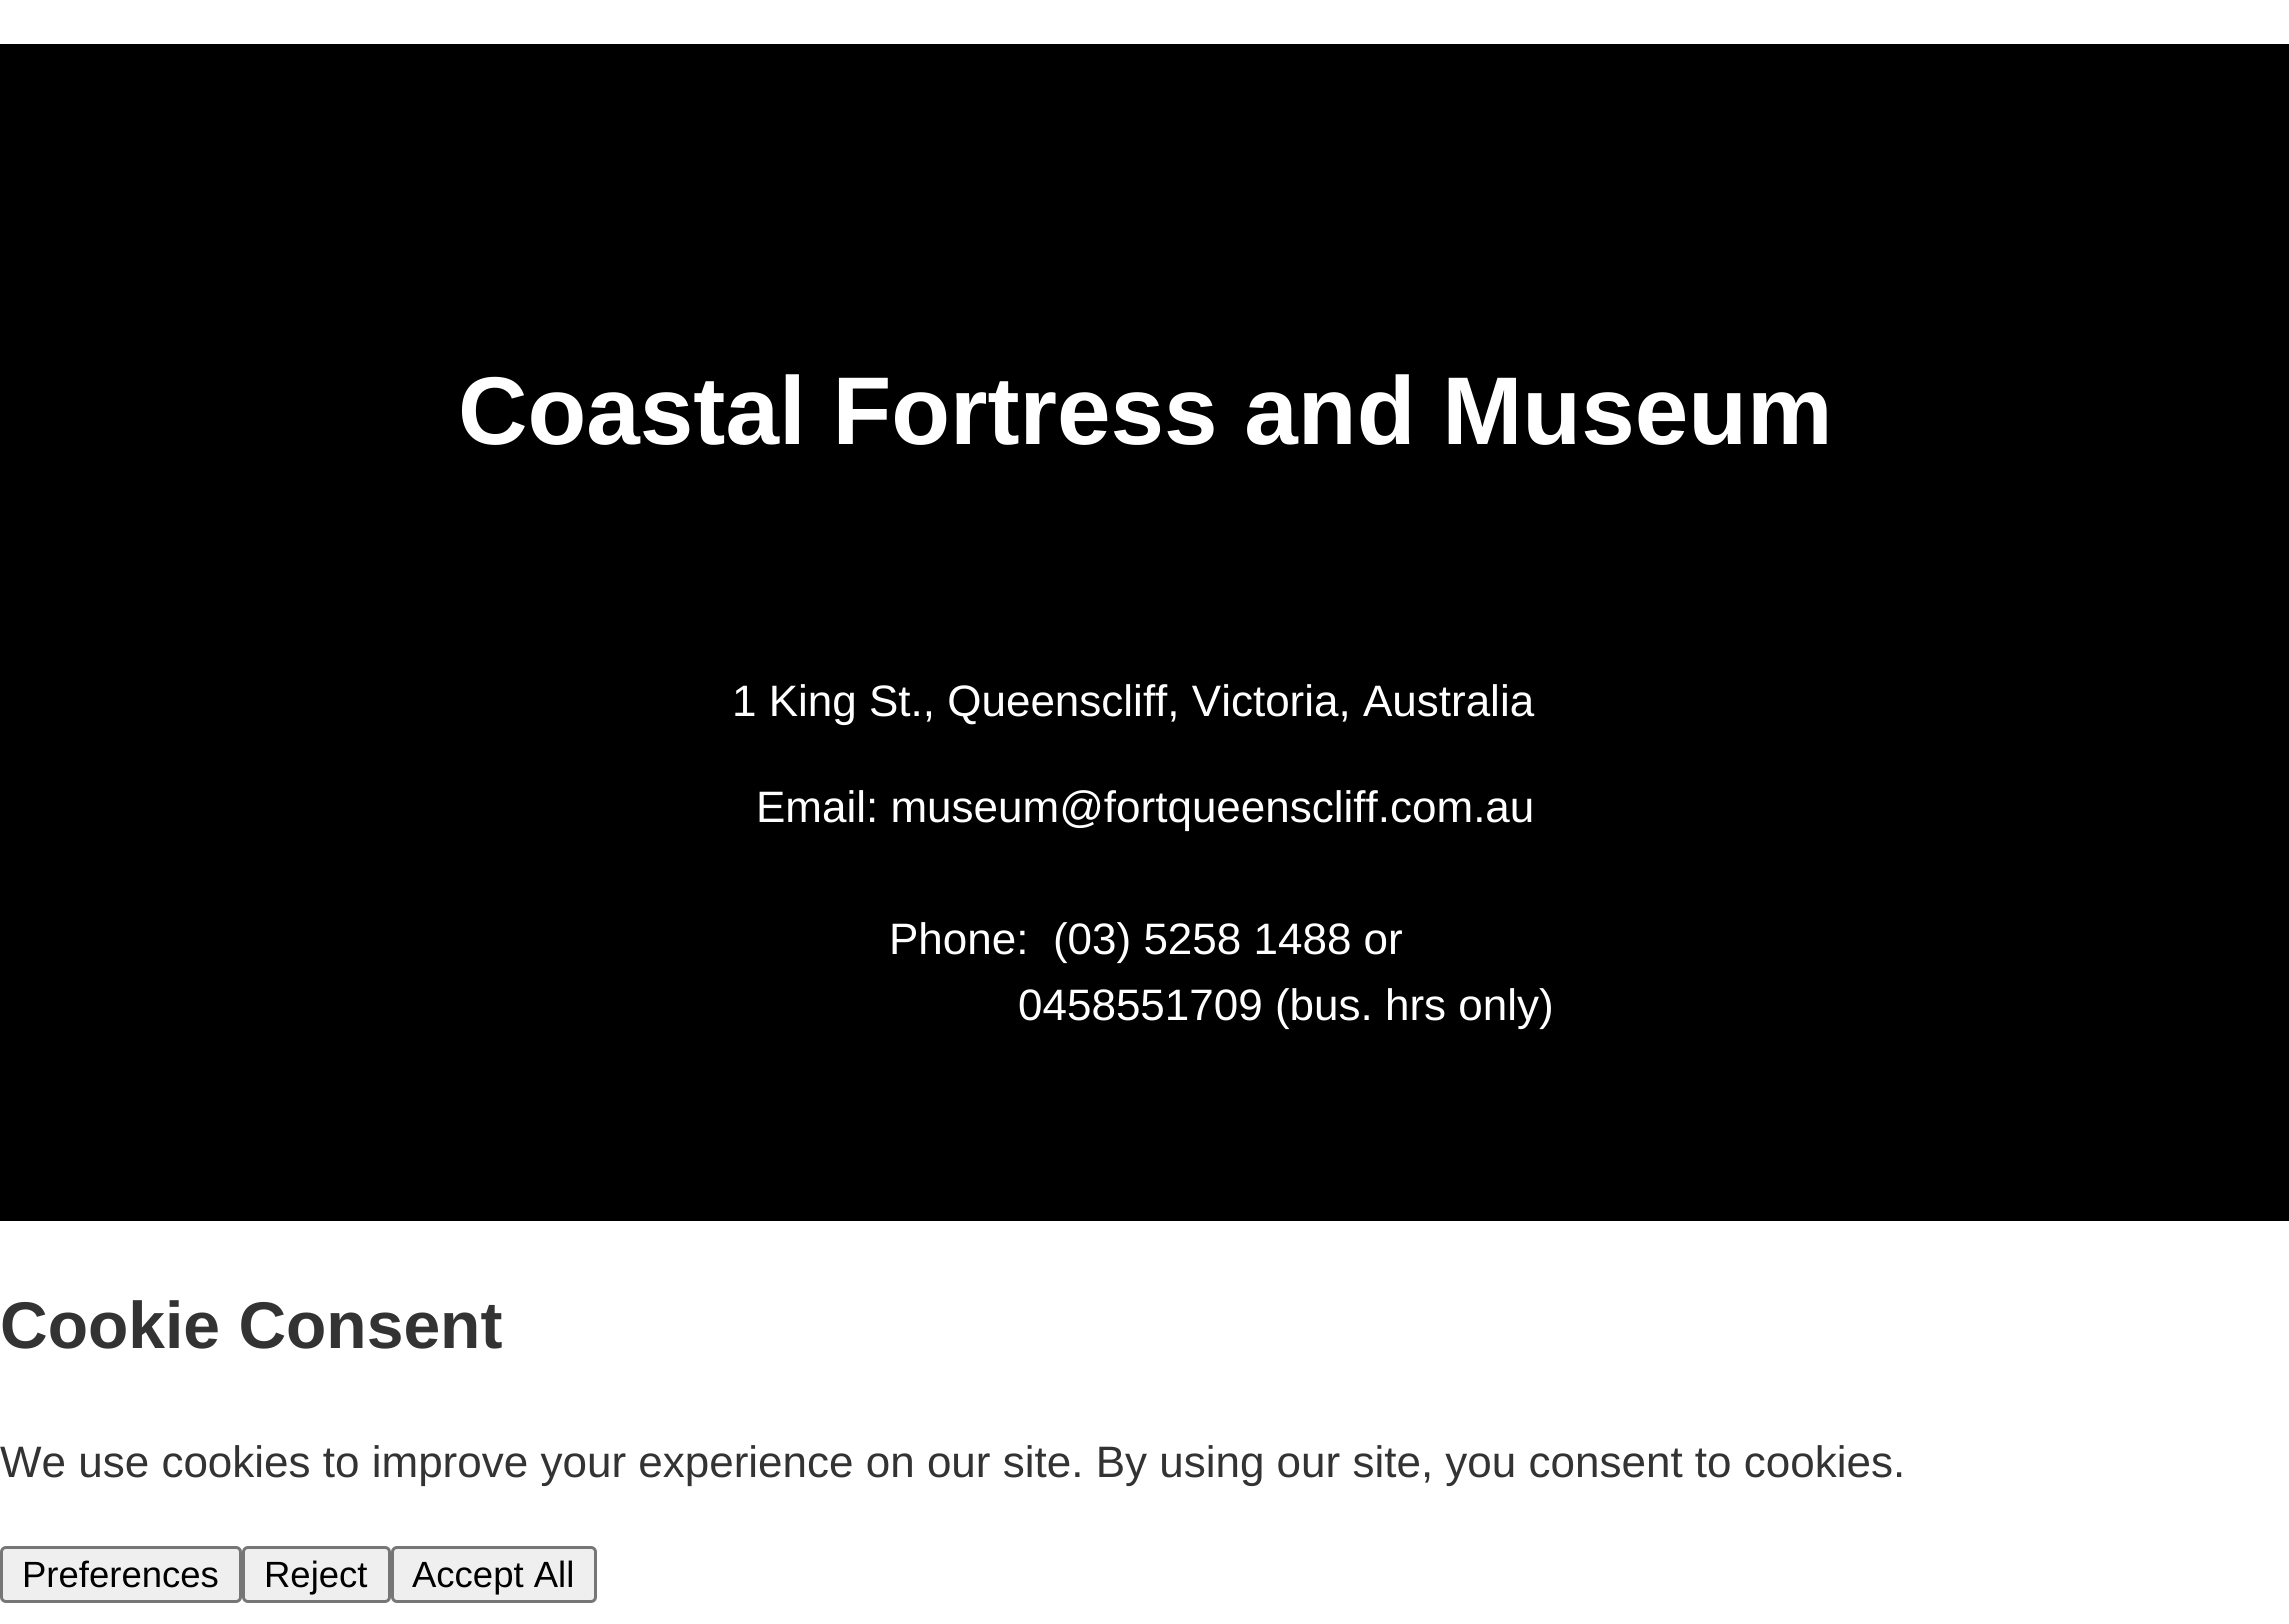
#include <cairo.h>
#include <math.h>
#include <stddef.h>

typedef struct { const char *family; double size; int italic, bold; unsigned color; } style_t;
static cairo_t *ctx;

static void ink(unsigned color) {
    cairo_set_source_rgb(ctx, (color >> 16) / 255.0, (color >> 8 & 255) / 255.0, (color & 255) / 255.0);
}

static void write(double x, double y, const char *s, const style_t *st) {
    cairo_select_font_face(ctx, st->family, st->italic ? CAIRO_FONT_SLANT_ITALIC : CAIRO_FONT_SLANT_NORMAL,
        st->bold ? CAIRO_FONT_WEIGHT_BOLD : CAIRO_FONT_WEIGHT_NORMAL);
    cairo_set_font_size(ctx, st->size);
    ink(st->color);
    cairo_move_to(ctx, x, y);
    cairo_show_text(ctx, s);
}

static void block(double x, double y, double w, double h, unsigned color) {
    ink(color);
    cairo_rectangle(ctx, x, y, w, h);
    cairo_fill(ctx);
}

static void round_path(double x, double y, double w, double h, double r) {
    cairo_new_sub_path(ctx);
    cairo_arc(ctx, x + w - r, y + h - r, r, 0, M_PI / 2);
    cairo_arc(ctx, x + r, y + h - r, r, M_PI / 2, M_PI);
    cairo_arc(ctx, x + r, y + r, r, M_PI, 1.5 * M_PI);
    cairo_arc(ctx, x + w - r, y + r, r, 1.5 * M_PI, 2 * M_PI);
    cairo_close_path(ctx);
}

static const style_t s1 = {"Liberation Sans", 96.25, 0, 1, 0xffffff};
static const style_t s2 = {"Liberation Sans", 44, 0, 0, 0xffffff};
static const style_t s3 = {"Liberation Sans", 66, 0, 1, 0x333333};
static const style_t s4 = {"Liberation Sans", 44, 0, 0, 0x333333};
static const style_t s5 = {"Liberation Sans", 36.5, 0, 0, 0x000000};

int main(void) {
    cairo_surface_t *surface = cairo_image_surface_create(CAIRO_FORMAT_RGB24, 2289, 1624);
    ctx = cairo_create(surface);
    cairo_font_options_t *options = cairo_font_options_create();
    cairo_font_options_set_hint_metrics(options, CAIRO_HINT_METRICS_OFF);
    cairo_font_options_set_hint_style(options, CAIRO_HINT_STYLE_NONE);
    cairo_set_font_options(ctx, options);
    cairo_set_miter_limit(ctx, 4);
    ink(0xffffff);
    cairo_paint(ctx);
    block(0, 44, 2289, 1177, 0x000000);
    write(458, 444, "Coastal Fortress and Museum", &s1);
    write(732, 716, "1 King St., Queenscliff, Victoria, Australia", &s2);
    write(756, 822, "Email: museum@fortqueenscliff.com.au", &s2);
    write(889, 954, "Phone:  (03) 5258 1488 or", &s2);
    write(1018, 1020, "0458551709 (bus. hrs only)", &s2);
    write(0, 1348, "Cookie Consent", &s3);
    write(0, 1477, "We use cookies to improve your experience on our site. By using our site, you consent to cookies.", &s4);
    ink(0xefefef);
    round_path(1.5, 1547.5, 239, 54, 4.5);
    cairo_fill_preserve(ctx);
    ink(0x767676);
    cairo_set_line_width(ctx, 3);
    cairo_stroke(ctx);
    write(22, 1587, "Preferences", &s5);
    ink(0xefefef);
    round_path(243.5, 1547.5, 146, 54, 4.5);
    cairo_fill_preserve(ctx);
    ink(0x767676);
    cairo_stroke(ctx);
    write(264, 1587, "Reject", &s5);
    ink(0xefefef);
    round_path(392.5, 1547.5, 203, 54, 4.5);
    cairo_fill_preserve(ctx);
    ink(0x767676);
    cairo_stroke(ctx);
    write(412, 1587, "Accept All", &s5);
    cairo_surface_write_to_png(surface, "screenshot.png");
    cairo_font_options_destroy(options);
    cairo_destroy(ctx);
    cairo_surface_destroy(surface);
    return 0;
}
